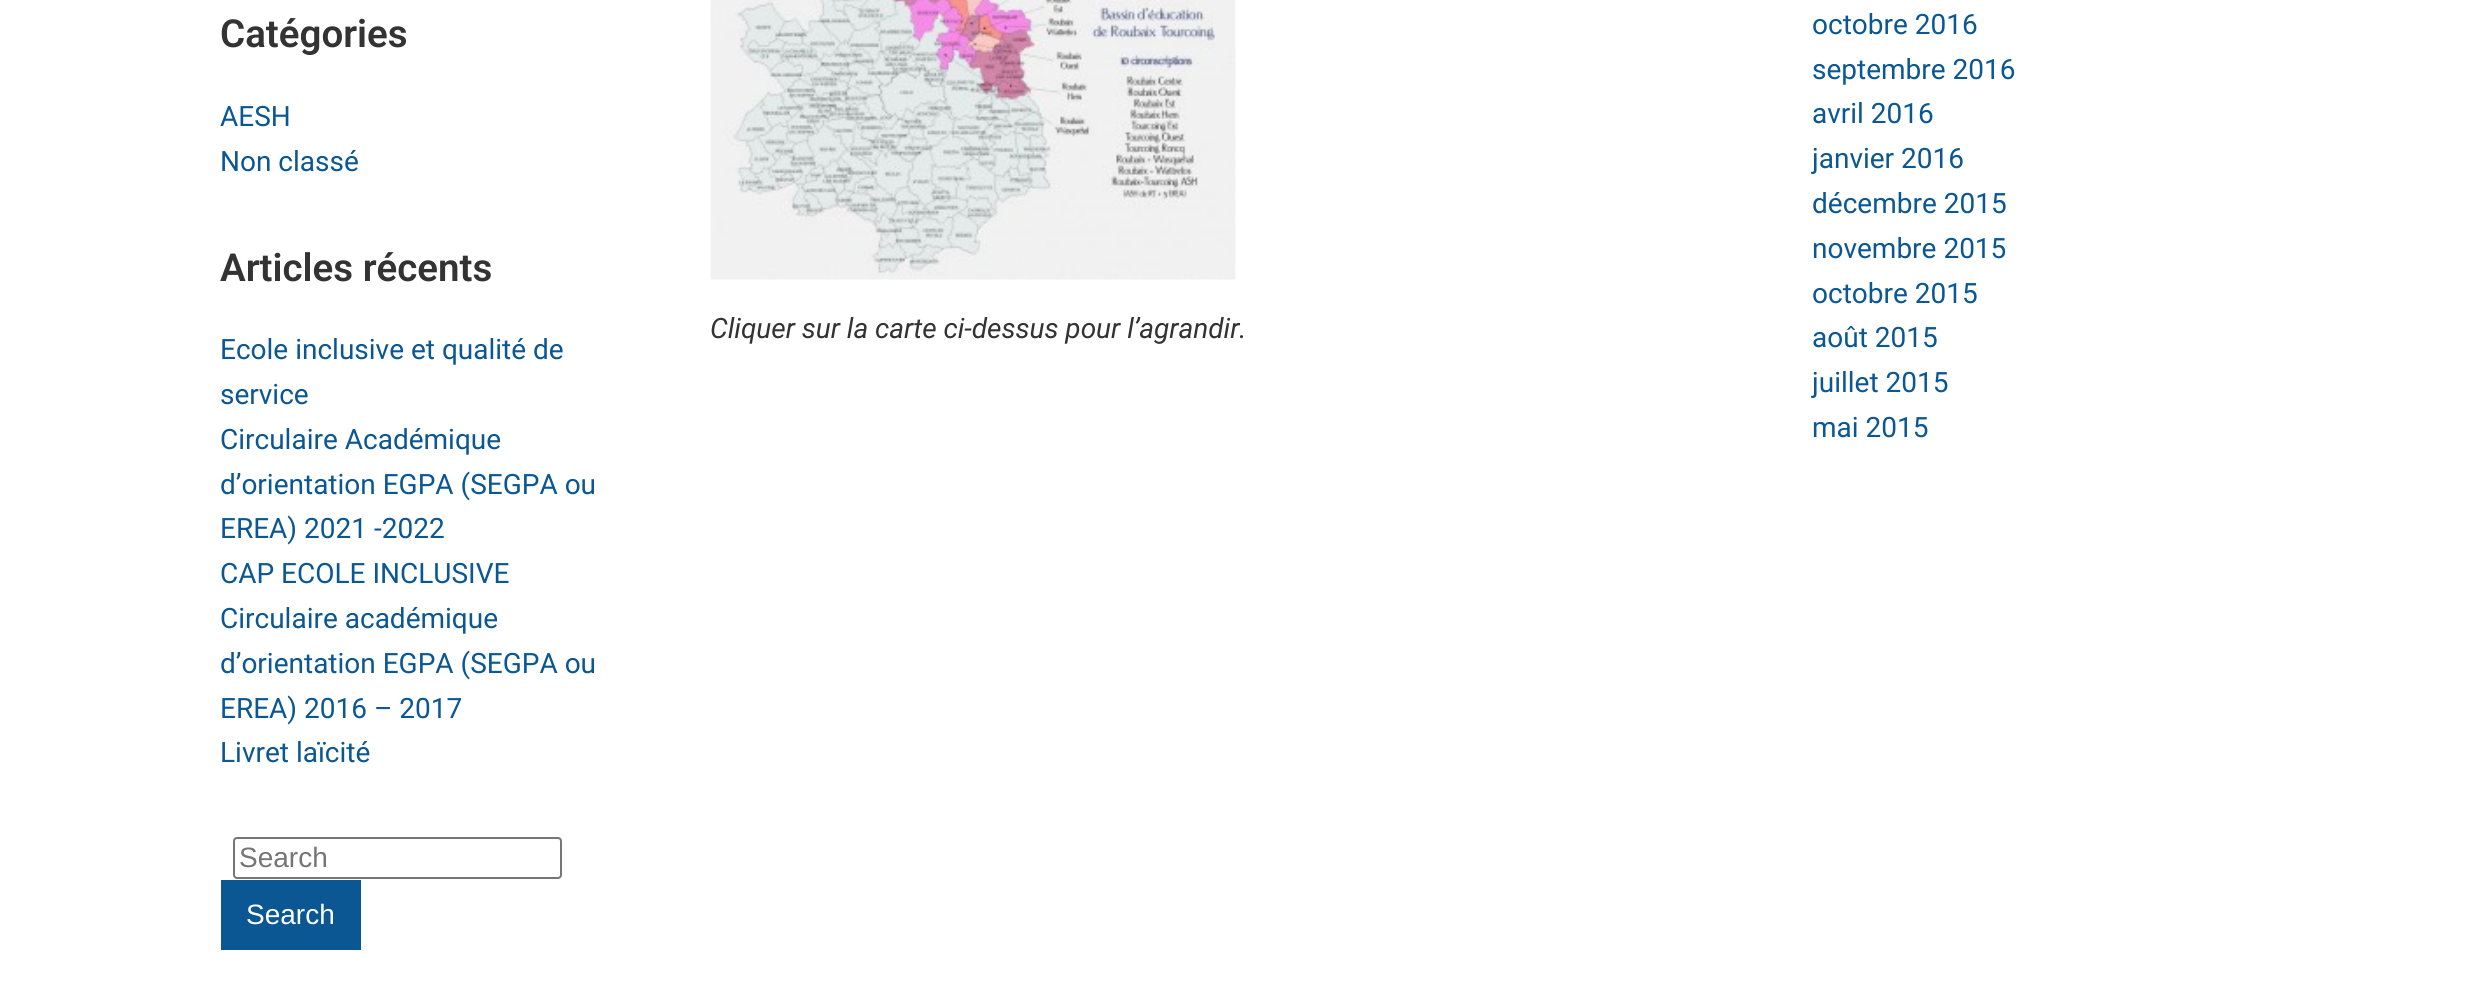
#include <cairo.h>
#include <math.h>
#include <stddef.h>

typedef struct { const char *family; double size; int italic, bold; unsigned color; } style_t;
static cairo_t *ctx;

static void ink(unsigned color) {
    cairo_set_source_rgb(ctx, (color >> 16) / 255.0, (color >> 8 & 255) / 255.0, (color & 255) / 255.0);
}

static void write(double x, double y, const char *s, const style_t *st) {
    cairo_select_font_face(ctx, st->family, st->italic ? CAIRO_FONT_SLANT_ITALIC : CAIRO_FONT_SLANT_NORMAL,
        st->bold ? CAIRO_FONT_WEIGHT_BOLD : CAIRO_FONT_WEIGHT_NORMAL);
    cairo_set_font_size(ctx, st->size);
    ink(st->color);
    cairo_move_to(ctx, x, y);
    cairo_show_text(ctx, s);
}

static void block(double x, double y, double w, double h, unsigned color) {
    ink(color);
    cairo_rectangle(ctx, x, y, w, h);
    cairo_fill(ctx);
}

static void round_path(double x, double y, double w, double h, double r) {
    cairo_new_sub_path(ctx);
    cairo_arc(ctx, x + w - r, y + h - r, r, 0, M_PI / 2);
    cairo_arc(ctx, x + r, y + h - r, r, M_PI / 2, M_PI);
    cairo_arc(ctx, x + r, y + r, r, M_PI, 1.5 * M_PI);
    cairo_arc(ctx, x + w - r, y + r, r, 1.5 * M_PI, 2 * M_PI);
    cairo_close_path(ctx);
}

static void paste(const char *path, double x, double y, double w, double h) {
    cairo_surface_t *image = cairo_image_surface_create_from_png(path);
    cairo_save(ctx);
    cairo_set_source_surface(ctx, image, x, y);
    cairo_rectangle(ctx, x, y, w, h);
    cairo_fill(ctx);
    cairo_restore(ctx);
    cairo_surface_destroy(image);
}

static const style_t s1 = {"Roboto SemiBold", 38.5, 0, 0, 0x333333};
static const style_t s2 = {"Roboto", 28, 0, 0, 0x0a5794};
static const style_t s3 = {"Liberation Sans", 28, 0, 0, 0x757575};
static const style_t s4 = {"Liberation Sans", 28, 0, 0, 0xffffff};
static const style_t s5 = {"Roboto", 28, 1, 0, 0x333333};

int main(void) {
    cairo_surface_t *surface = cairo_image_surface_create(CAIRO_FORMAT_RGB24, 2486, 1006);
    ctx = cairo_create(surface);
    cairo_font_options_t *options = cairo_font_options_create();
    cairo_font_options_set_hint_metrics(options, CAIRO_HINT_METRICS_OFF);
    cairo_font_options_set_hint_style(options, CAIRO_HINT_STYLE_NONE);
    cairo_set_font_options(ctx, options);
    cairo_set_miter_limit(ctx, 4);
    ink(0xffffff);
    cairo_paint(ctx);
    write(220, 47, "Catégories", &s1);
    write(220, 126, "AESH", &s2);
    write(220, 171, "Non classé", &s2);
    write(220, 281, "Articles récents", &s1);
    write(220, 359, "Ecole inclusive et qualité de", &s2);
    write(220, 404, "service", &s2);
    write(220, 449, "Circulaire Académique", &s2);
    write(220, 494, "d’orientation EGPA (SEGPA ou", &s2);
    write(220, 538, "EREA) 2021 -2022", &s2);
    write(220, 583, "CAP ECOLE INCLUSIVE", &s2);
    write(220, 628, "Circulaire académique", &s2);
    write(220, 673, "d’orientation EGPA (SEGPA ou", &s2);
    write(220, 718, "EREA) 2016 – 2017", &s2);
    write(220, 762, "Livret laïcité", &s2);
    round_path(234, 838, 327, 40, 3);
    ink(0x767676);
    cairo_stroke(ctx);
    write(239, 867, "Search", &s3);
    block(221, 880, 140, 70, 0x0a5794);
    write(246, 924, "Search", &s4);
    paste("pic1.png", 710, 0, 526, 280);
    write(710, 338, "Cliquer sur la carte ci-dessus pour l’agrandir.", &s5);
    write(1812, 34, "octobre 2016", &s2);
    write(1812, 79, "septembre 2016", &s2);
    write(1812, 123, "avril 2016", &s2);
    write(1812, 168, "janvier 2016", &s2);
    write(1812, 213, "décembre 2015", &s2);
    write(1812, 258, "novembre 2015", &s2);
    write(1812, 303, "octobre 2015", &s2);
    write(1812, 347, "août 2015", &s2);
    write(1812, 392, "juillet 2015", &s2);
    write(1812, 437, "mai 2015", &s2);
    cairo_surface_write_to_png(surface, "screenshot.png");
    cairo_font_options_destroy(options);
    cairo_destroy(ctx);
    cairo_surface_destroy(surface);
    return 0;
}
